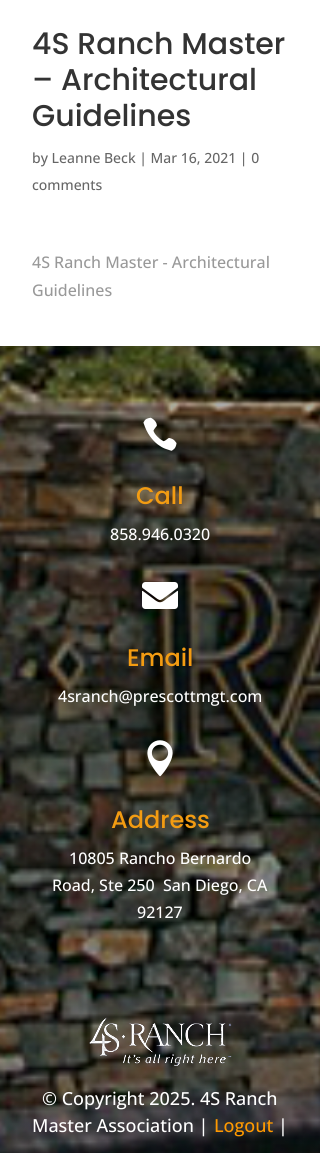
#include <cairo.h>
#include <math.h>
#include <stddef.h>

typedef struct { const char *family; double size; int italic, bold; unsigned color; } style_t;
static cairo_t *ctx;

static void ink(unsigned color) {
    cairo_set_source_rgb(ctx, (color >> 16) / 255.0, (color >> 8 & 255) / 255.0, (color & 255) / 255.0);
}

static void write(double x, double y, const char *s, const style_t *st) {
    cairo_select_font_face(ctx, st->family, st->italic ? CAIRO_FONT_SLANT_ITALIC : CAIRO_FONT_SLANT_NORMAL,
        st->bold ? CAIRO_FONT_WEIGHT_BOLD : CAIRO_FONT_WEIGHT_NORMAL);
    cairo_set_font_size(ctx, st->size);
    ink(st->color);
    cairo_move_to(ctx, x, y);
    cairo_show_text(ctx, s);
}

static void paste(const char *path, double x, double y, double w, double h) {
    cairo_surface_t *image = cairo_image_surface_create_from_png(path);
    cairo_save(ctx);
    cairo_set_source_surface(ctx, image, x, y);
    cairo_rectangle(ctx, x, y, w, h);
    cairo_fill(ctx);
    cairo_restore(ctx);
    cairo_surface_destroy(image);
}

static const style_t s1 = {"Poppins Medium", 30, 0, 0, 0x333333};
static const style_t s2 = {"Open Sans Medium", 14, 0, 0, 0x666666};
static const style_t s3 = {"Open Sans Medium", 16, 0, 0, 0x999999};
static const style_t s4 = {"Poppins Medium", 24, 0, 0, 0xf39c12};
static const style_t s5 = {"Open Sans Medium", 16, 0, 0, 0xffffff};
static const style_t s6 = {"Open Sans Medium", 18, 0, 0, 0xffffff};
static const style_t s7 = {"Open Sans Medium", 18, 0, 0, 0xff9900};

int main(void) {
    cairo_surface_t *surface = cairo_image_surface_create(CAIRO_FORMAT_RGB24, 320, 1153);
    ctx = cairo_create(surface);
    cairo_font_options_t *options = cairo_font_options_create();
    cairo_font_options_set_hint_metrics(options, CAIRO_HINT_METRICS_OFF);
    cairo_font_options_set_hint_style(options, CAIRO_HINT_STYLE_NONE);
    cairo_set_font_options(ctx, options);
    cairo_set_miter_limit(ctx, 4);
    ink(0xffffff);
    cairo_paint(ctx);
    write(32, 54, "4S Ranch Master", &s1);
    write(32, 90, "– Architectural", &s1);
    write(32, 126, "Guidelines", &s1);
    write(32, 163, "by Leanne Beck | Mar 16, 2021 | 0", &s2);
    write(32, 190, "comments", &s2);
    write(32, 268, "4S Ranch Master - Architectural", &s3);
    write(32, 296, "Guidelines", &s3);
    paste("pic1.png", 0, 346, 320, 807);
    paste("pic2.png", 143, 417, 34, 34);
    write(136, 504, "Call", &s4);
    write(110, 540, "858.946.0320", &s5);
    paste("pic3.png", 142, 582, 36, 27);
    write(127, 666, "Email", &s4);
    write(58, 702, "4sranch@prescottmgt.com", &s5);
    paste("pic4.png", 147, 740, 26, 37);
    write(111, 828, "Address", &s4);
    write(69, 864, "10805 Rancho Bernardo", &s5);
    write(52, 891, "Road, Ste 250  San Diego, CA", &s5);
    write(137, 918, "92127", &s5);
    paste("pic5.png", 89, 1017, 143, 49);
    write(42, 1105, "© Copyright 2025. 4S Ranch", &s6);
    write(32, 1132, "Master Association |", &s6);
    write(214, 1132, "Logout", &s7);
    write(278, 1132, "|", &s6);
    cairo_surface_write_to_png(surface, "screenshot.png");
    cairo_font_options_destroy(options);
    cairo_destroy(ctx);
    cairo_surface_destroy(surface);
    return 0;
}
